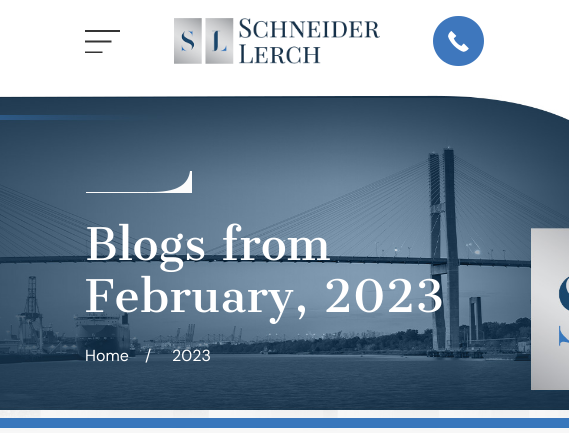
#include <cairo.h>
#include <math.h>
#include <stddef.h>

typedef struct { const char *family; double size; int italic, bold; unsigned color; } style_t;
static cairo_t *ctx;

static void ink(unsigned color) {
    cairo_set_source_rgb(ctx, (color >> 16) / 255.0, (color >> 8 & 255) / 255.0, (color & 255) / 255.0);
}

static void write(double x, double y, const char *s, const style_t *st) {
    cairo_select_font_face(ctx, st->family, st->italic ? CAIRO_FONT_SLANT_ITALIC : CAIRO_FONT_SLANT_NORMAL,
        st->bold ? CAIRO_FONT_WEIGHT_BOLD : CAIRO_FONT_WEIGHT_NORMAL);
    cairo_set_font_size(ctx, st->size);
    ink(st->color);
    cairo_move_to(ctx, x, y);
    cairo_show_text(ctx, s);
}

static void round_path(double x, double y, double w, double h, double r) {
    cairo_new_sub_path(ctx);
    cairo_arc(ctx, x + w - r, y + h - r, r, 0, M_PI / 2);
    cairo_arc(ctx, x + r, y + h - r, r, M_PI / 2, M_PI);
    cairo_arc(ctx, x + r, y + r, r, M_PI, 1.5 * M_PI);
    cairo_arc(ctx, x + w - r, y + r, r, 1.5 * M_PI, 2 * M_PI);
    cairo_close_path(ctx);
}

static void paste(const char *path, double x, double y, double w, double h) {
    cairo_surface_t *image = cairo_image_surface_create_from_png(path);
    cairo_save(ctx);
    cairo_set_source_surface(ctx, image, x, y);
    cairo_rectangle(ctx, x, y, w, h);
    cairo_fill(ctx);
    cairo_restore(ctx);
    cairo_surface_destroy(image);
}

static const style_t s1 = {"Cantata One", 44, 0, 0, 0xffffff};
static const style_t s2 = {"DM Sans", 16, 0, 0, 0xffffff};

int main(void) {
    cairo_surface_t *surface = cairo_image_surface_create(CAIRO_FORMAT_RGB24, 569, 433);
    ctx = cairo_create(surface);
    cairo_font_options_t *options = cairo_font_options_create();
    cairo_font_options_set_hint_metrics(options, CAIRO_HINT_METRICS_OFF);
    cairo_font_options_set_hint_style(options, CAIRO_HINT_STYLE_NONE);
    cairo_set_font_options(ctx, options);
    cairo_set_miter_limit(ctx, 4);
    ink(0xffffff);
    cairo_paint(ctx);
    ink(0x343434);
    cairo_new_path(ctx);
    cairo_move_to(ctx, 85, 53);
    cairo_line_to(ctx, 85, 51.5);
    cairo_line_to(ctx, 102.5, 51.5);
    cairo_line_to(ctx, 102.5, 53);
    cairo_close_path(ctx);
    cairo_move_to(ctx, 85, 42.5);
    cairo_line_to(ctx, 85, 40.5);
    cairo_line_to(ctx, 111.5, 40.5);
    cairo_line_to(ctx, 111.5, 42.5);
    cairo_close_path(ctx);
    cairo_move_to(ctx, 85, 32);
    cairo_line_to(ctx, 85, 30);
    cairo_line_to(ctx, 120, 30);
    cairo_line_to(ctx, 120, 32);
    cairo_close_path(ctx);
    cairo_fill(ctx);
    paste("pic1.png", 174, 18, 206, 46);
    ink(0x3e77bd);
    round_path(433, 16, 51, 50, 25);
    cairo_fill(ctx);
    paste("pic2.png", 448, 31, 21, 21);
    paste("pic3.png", 0, 82, 569, 351);
    ink(0xfcfcfc);
    cairo_new_path(ctx);
    cairo_move_to(ctx, 190, 171);
    cairo_curve_to(ctx, 187, 194, 158, 192, 141, 192);
    cairo_line_to(ctx, 86, 192);
    cairo_line_to(ctx, 86, 193);
    cairo_line_to(ctx, 192, 193);
    cairo_line_to(ctx, 192, 171);
    cairo_close_path(ctx);
    cairo_fill(ctx);
    write(85, 260, "Blogs from", &s1);
    write(85, 312, "February, 2023", &s1);
    write(85, 361, "Home", &s2);
    write(145, 361, "/", &s2);
    write(172, 361, "2023", &s2);
    cairo_surface_write_to_png(surface, "screenshot.png");
    cairo_font_options_destroy(options);
    cairo_destroy(ctx);
    cairo_surface_destroy(surface);
    return 0;
}
